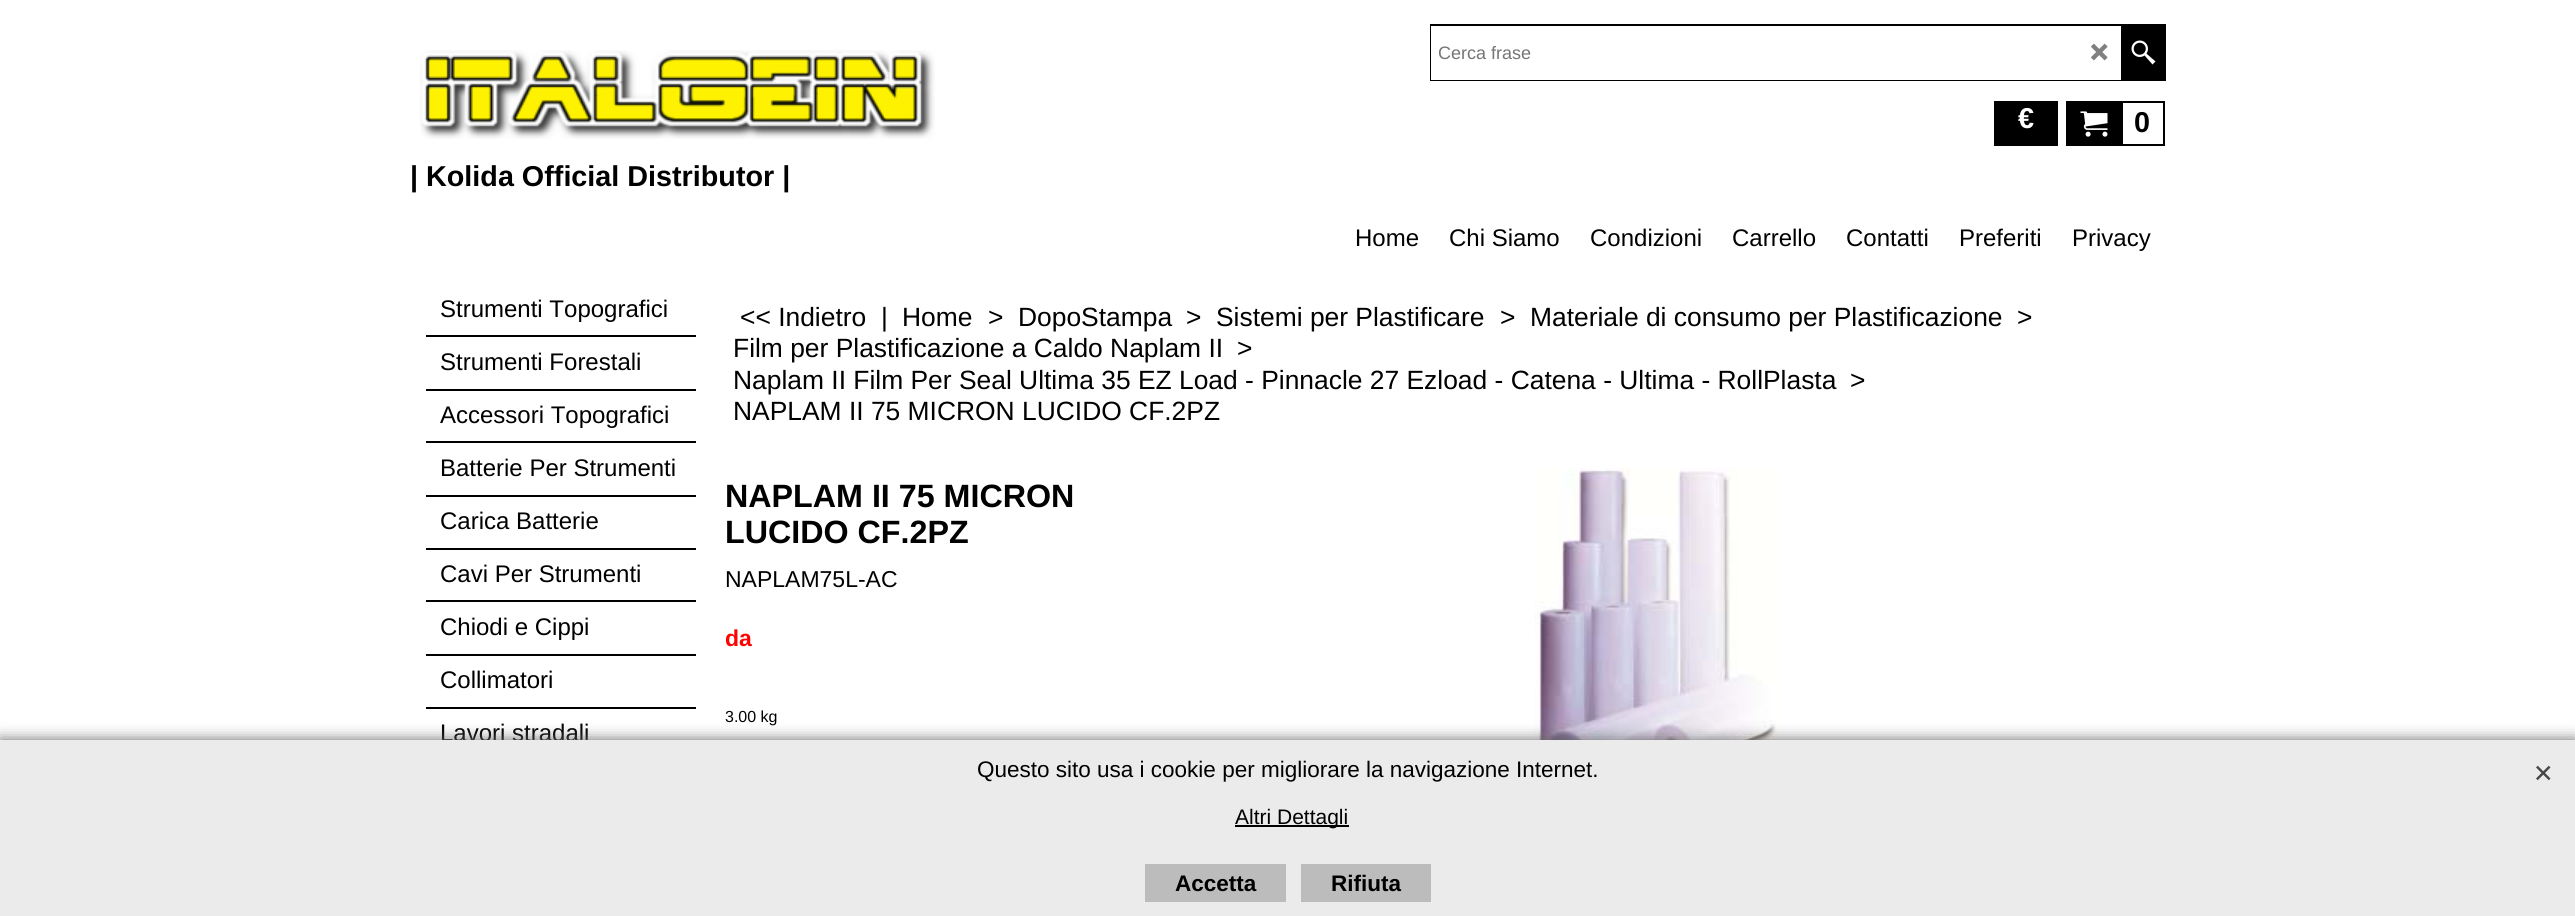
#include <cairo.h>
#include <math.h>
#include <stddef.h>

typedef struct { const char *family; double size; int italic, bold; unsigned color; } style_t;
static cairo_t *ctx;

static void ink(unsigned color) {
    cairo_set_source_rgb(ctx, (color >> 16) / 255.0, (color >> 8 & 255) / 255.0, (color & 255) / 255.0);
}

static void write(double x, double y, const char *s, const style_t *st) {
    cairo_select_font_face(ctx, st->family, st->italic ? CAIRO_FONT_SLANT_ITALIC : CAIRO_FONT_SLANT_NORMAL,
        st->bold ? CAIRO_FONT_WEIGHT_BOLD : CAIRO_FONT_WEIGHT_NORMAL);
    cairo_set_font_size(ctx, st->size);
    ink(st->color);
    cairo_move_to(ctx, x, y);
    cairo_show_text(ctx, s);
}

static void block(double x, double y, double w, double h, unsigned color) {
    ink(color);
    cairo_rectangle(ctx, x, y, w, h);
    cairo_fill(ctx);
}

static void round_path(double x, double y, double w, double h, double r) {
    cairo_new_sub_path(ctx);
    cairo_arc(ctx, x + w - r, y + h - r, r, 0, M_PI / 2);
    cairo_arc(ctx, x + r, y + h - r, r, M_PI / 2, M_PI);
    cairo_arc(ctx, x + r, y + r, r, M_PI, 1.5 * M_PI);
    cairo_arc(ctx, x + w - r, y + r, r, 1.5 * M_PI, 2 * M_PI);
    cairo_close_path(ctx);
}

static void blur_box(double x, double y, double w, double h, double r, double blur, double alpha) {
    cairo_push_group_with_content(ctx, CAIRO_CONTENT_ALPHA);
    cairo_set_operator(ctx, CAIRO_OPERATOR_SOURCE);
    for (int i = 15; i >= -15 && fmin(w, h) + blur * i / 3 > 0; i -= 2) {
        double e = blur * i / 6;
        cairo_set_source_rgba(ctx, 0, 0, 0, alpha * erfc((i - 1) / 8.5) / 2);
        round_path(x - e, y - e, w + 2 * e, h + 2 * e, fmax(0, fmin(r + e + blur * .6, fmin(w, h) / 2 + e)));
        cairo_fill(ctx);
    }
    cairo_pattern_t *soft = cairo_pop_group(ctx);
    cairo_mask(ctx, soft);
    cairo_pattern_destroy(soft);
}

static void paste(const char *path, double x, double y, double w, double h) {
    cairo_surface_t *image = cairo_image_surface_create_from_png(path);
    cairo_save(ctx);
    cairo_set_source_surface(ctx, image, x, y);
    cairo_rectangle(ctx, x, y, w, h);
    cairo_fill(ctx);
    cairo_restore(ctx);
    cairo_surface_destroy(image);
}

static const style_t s1 = {"Liberation Sans", 18, 0, 0, 0x757575};
static const style_t s2 = {"Liberation Sans", 28.75, 0, 1, 0xffffff};
static const style_t s3 = {"Liberation Sans", 28.75, 0, 1, 0x000000};
static const style_t s4 = {"Liberation Sans", 24, 0, 0, 0x000000};
static const style_t s5 = {"Liberation Sans", 26.4, 0, 0, 0x000000};
static const style_t s6 = {"Liberation Sans", 32.25, 0, 1, 0x000000};
static const style_t s7 = {"Liberation Sans", 23, 0, 0, 0x000000};
static const style_t s8 = {"Liberation Sans", 23, 0, 1, 0xff0303};
static const style_t s9 = {"Liberation Sans", 16, 0, 0, 0x000000};
static const style_t s10 = {"Liberation Sans", 22.5, 0, 0, 0x000000};
static const style_t s11 = {"Liberation Sans", 21, 0, 0, 0x000000};
static const style_t s12 = {"Liberation Sans", 22.5, 0, 1, 0x000000};

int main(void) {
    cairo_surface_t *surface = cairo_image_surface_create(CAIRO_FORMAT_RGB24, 2575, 916);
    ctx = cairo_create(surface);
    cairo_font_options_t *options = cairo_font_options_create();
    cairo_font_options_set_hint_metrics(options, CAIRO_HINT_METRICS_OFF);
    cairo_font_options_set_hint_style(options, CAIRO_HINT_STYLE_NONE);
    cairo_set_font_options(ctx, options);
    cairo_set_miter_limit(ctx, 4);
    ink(0xffffff);
    cairo_paint(ctx);
    cairo_rectangle(ctx, 1431, 25, 734, 55);
    ink(0x000000);
    cairo_stroke(ctx);
    block(1431, 26, 690, 54, 0xffffff);
    cairo_save(ctx);
    cairo_rectangle(ctx, 1439, 42, 645, 21);
    cairo_clip(ctx);
    write(1438, 59, "Cerca frase", &s1);
    cairo_restore(ctx);
    paste("pic1.png", 2091, 43, 17, 18);
    block(2121, 26, 43, 53, 0x000000);
    paste("pic2.png", 2131, 40, 25, 25);
    block(1994, 101, 64, 45, 0x000000);
    write(2018, 128, "€", &s2);
    block(2066, 101, 55, 45, 0x000000);
    paste("pic3.png", 2080, 111, 28, 26);
    cairo_rectangle(ctx, 2122, 102, 42, 43);
    cairo_stroke(ctx);
    write(2134, 132, "0", &s3);
    paste("pic4.png", 420, 50, 515, 89);
    write(410, 186, "| Kolida Official Distributor |", &s3);
    write(1355, 246, "Home", &s4);
    write(1449, 246, "Chi Siamo", &s4);
    write(1590, 246, "Condizioni", &s4);
    write(1732, 246, "Carrello", &s4);
    write(1846, 246, "Contatti", &s4);
    write(1959, 246, "Preferiti", &s4);
    write(2072, 246, "Privacy", &s4);
    block(426, 335, 270, 2, 0x000000);
    write(440, 317, "Strumenti Topografici", &s4);
    block(426, 389, 270, 2, 0x000000);
    write(440, 370, "Strumenti Forestali", &s4);
    block(426, 441, 270, 2, 0x000000);
    write(440, 423, "Accessori Topografici", &s4);
    block(426, 495, 270, 2, 0x000000);
    write(440, 476, "Batterie Per Strumenti", &s4);
    block(426, 548, 270, 2, 0x000000);
    write(440, 529, "Carica Batterie", &s4);
    block(426, 600, 270, 2, 0x000000);
    write(440, 582, "Cavi Per Strumenti", &s4);
    block(426, 654, 270, 2, 0x000000);
    write(440, 635, "Chiodi e Cippi", &s4);
    block(426, 707, 270, 2, 0x000000);
    write(440, 688, "Collimatori", &s4);
    write(440, 741, "Lavori stradali", &s4);
    write(740, 326, "<< Indietro", &s5);
    write(881, 326, "|", &s5);
    write(902, 326, "Home", &s5);
    write(988, 326, ">", &s5);
    write(1018, 326, "DopoStampa", &s5);
    write(1186, 326, ">", &s5);
    write(1216, 326, "Sistemi per Plastificare", &s5);
    write(1500, 326, ">", &s5);
    write(1530, 326, "Materiale di consumo per Plastificazione", &s5);
    write(2017, 326, ">", &s5);
    write(733, 357, "Film per Plastificazione a Caldo Naplam II", &s5);
    write(1237, 357, ">", &s5);
    write(733, 389, "Naplam II Film Per Seal Ultima 35 EZ Load - Pinnacle 27 Ezload - Catena - Ultima - RollPlasta", &s5);
    write(1850, 389, ">", &s5);
    write(733, 420, "NAPLAM II 75 MICRON LUCIDO CF.2PZ", &s5);
    write(725, 507, "NAPLAM II 75 MICRON", &s6);
    write(725, 543, "LUCIDO CF.2PZ", &s6);
    write(725, 587, "NAPLAM75L-AC", &s7);
    write(725, 646, "da", &s8);
    write(725, 722, "3.00 kg", &s9);
    paste("pic5.png", 1534, 468, 245, 272);
    ink(0x666666);
    blur_box(0, 740, 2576, 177, 0, 7.5, 1);
    block(0, 740, 2575, 176, 0xebebeb);
    write(977, 777, "Questo sito usa i cookie per migliorare la navigazione Internet.", &s10);
    block(1235, 825, 114, 2, 0x000000);
    write(1235, 824, "Altri Dettagli", &s11);
    paste("pic6.png", 2536, 765, 15, 16);
    block(1145, 864, 141, 38, 0xbcbcbc);
    write(1175, 891, "Accetta", &s12);
    block(1301, 864, 130, 38, 0xbcbcbc);
    write(1331, 891, "Rifiuta", &s12);
    cairo_surface_write_to_png(surface, "screenshot.png");
    cairo_font_options_destroy(options);
    cairo_destroy(ctx);
    cairo_surface_destroy(surface);
    return 0;
}
